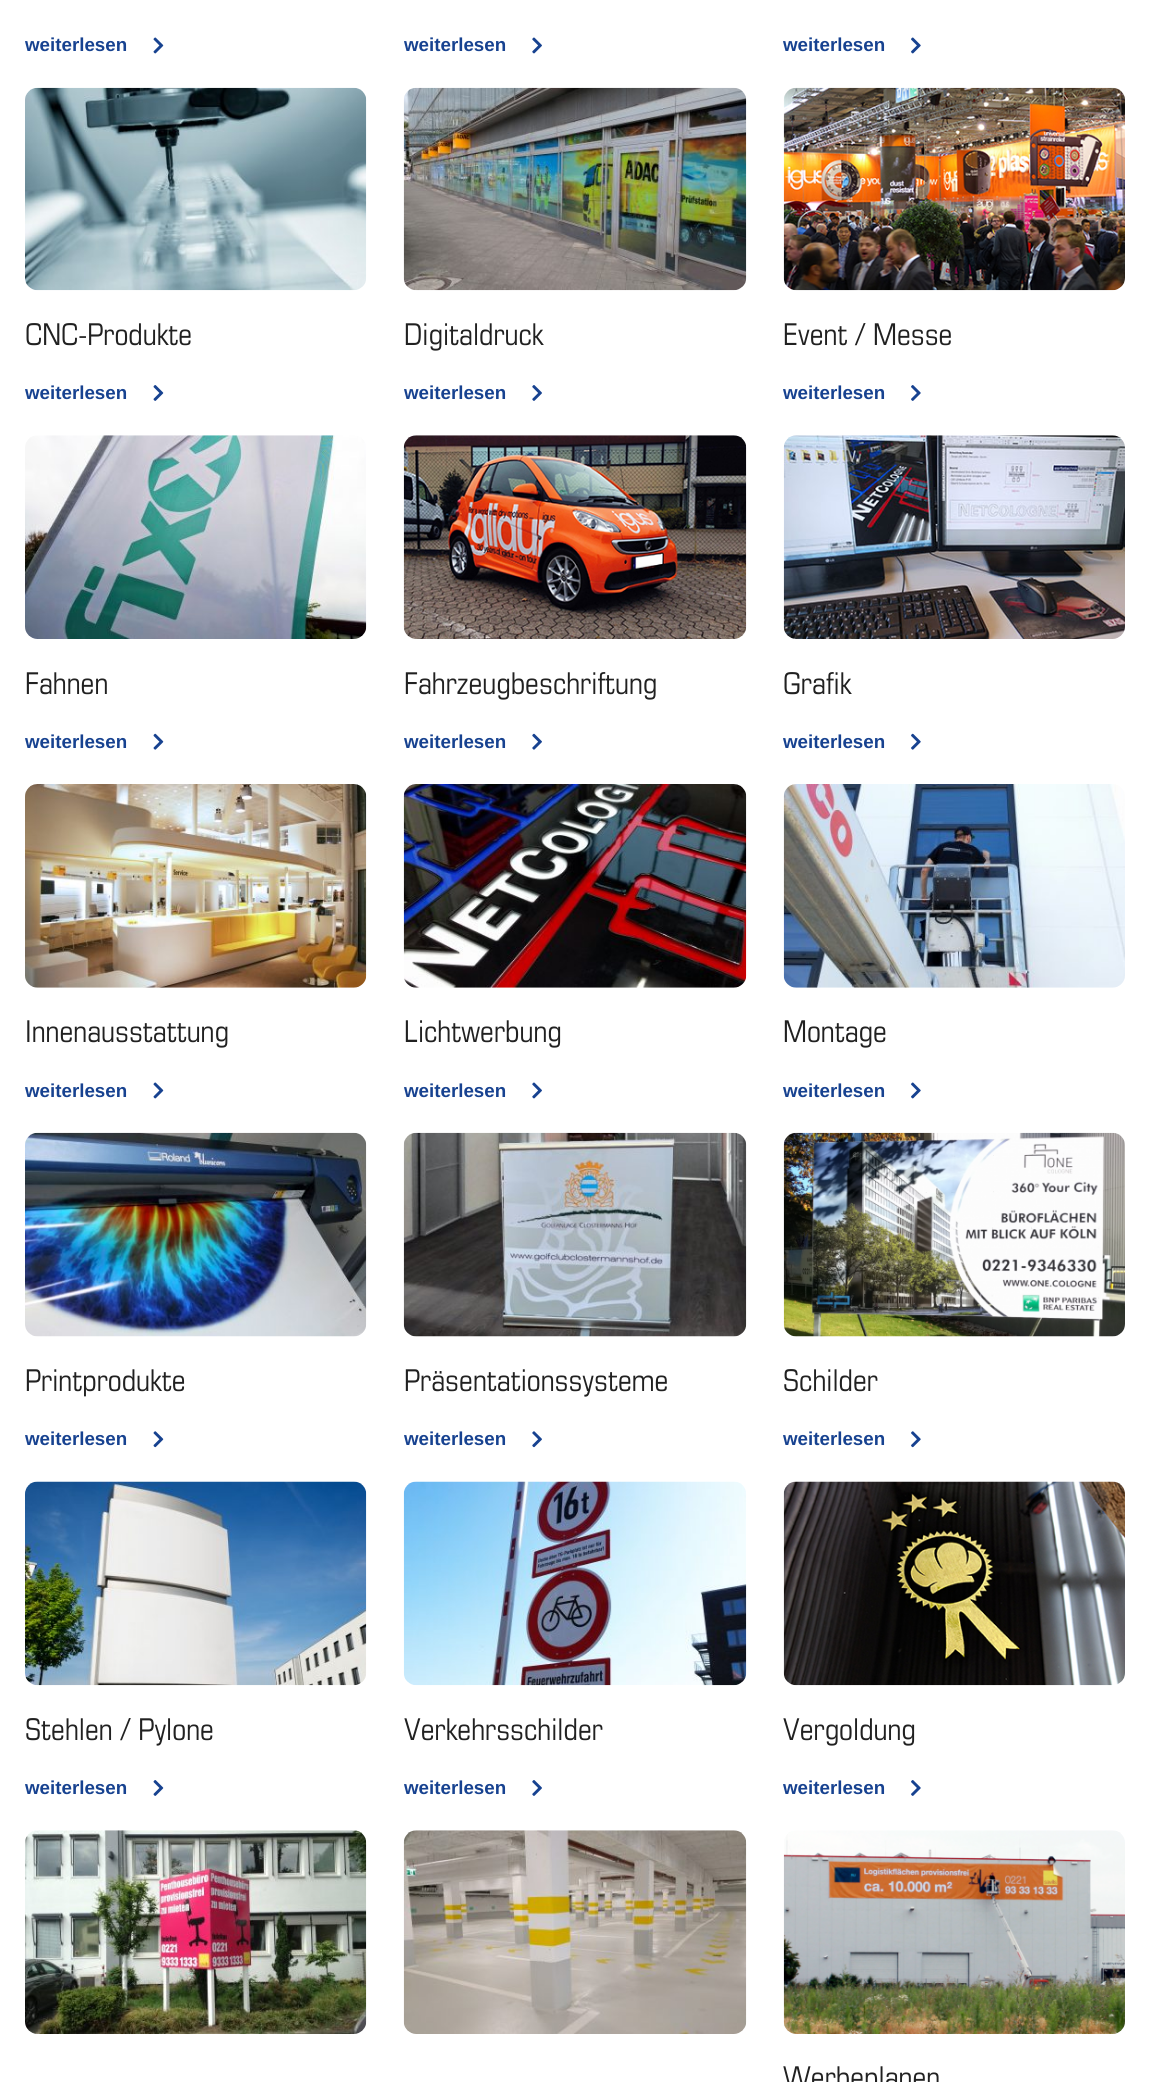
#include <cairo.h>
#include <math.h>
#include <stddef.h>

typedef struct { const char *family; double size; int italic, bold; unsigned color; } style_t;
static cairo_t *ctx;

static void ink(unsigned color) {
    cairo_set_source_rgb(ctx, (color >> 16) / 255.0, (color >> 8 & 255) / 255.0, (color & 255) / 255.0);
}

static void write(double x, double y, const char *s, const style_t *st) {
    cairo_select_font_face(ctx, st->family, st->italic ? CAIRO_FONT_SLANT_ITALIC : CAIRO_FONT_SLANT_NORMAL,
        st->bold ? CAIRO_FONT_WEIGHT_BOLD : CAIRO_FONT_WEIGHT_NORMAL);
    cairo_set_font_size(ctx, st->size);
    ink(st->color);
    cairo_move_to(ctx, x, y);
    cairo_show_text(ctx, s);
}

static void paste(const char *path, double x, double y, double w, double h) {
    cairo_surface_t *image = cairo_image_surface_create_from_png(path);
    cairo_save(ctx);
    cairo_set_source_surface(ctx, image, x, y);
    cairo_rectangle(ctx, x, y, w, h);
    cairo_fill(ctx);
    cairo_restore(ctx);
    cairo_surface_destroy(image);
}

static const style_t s1 = {"Liberation Sans", 18.75, 0, 1, 0x174290};
static const style_t s2 = {"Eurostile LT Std", 30, 0, 0, 0x212121};

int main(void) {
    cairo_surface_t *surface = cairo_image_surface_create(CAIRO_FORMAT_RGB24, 1149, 2082);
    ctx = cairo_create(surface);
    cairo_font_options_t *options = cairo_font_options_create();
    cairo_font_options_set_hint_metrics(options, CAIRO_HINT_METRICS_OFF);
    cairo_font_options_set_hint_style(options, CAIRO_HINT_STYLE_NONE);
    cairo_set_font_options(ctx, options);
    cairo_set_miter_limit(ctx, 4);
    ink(0xffffff);
    cairo_paint(ctx);
    write(25, 51, "weiterlesen", &s1);
    paste("pic1.png", 153, 37, 11, 17);
    write(404, 51, "weiterlesen", &s1);
    paste("pic2.png", 532, 37, 10, 17);
    write(783, 51, "weiterlesen", &s1);
    paste("pic3.png", 911, 37, 10, 17);
    paste("pic4.png", 25, 87, 342, 204);
    write(25, 345, "CNC-Produkte", &s2);
    write(25, 399, "weiterlesen", &s1);
    paste("pic5.png", 153, 385, 11, 16);
    paste("pic6.png", 403, 87, 344, 204);
    write(404, 345, "Digitaldruck", &s2);
    write(404, 399, "weiterlesen", &s1);
    paste("pic7.png", 532, 385, 10, 16);
    paste("pic8.png", 783, 87, 342, 204);
    write(783, 345, "Event / Messe", &s2);
    write(783, 399, "weiterlesen", &s1);
    paste("pic9.png", 911, 385, 10, 16);
    paste("pic10.png", 25, 435, 342, 204);
    write(25, 694, "Fahnen", &s2);
    write(25, 748, "weiterlesen", &s1);
    paste("pic11.png", 153, 733, 11, 17);
    paste("pic12.png", 403, 435, 344, 204);
    write(404, 694, "Fahrzeugbeschriftung", &s2);
    write(404, 748, "weiterlesen", &s1);
    paste("pic13.png", 532, 733, 10, 17);
    paste("pic14.png", 783, 435, 342, 204);
    write(783, 694, "Grafik", &s2);
    write(783, 748, "weiterlesen", &s1);
    paste("pic15.png", 911, 733, 10, 17);
    paste("pic16.png", 25, 784, 342, 204);
    write(25, 1042, "Innenausstattung", &s2);
    write(25, 1097, "weiterlesen", &s1);
    paste("pic1.png", 153, 1082, 11, 17);
    paste("pic17.png", 403, 784, 344, 204);
    write(404, 1042, "Lichtwerbung", &s2);
    write(404, 1097, "weiterlesen", &s1);
    paste("pic2.png", 532, 1082, 10, 17);
    paste("pic18.png", 783, 784, 342, 204);
    write(783, 1042, "Montage", &s2);
    write(783, 1097, "weiterlesen", &s1);
    paste("pic3.png", 911, 1082, 10, 17);
    paste("pic19.png", 25, 1132, 342, 205);
    write(25, 1391, "Printprodukte", &s2);
    write(25, 1445, "weiterlesen", &s1);
    paste("pic20.png", 153, 1431, 11, 17);
    paste("pic21.png", 403, 1132, 344, 205);
    write(404, 1391, "Präsentationssysteme", &s2);
    write(404, 1445, "weiterlesen", &s1);
    paste("pic22.png", 532, 1431, 10, 17);
    paste("pic23.png", 783, 1132, 342, 205);
    write(783, 1391, "Schilder", &s2);
    write(783, 1445, "weiterlesen", &s1);
    paste("pic24.png", 911, 1431, 10, 17);
    paste("pic25.png", 25, 1481, 342, 205);
    write(25, 1740, "Stehlen / Pylone", &s2);
    write(25, 1794, "weiterlesen", &s1);
    paste("pic5.png", 153, 1780, 11, 16);
    paste("pic26.png", 403, 1481, 344, 205);
    write(404, 1740, "Verkehrsschilder", &s2);
    write(404, 1794, "weiterlesen", &s1);
    paste("pic7.png", 532, 1780, 10, 16);
    paste("pic27.png", 783, 1481, 342, 205);
    write(783, 1740, "Vergoldung", &s2);
    write(783, 1794, "weiterlesen", &s1);
    paste("pic9.png", 911, 1780, 10, 16);
    paste("pic28.png", 25, 1830, 342, 204);
    paste("pic29.png", 403, 1830, 344, 204);
    paste("pic30.png", 783, 1830, 342, 204);
    write(783, 2088, "Werbeplanen", &s2);
    cairo_surface_write_to_png(surface, "screenshot.png");
    cairo_font_options_destroy(options);
    cairo_destroy(ctx);
    cairo_surface_destroy(surface);
    return 0;
}
